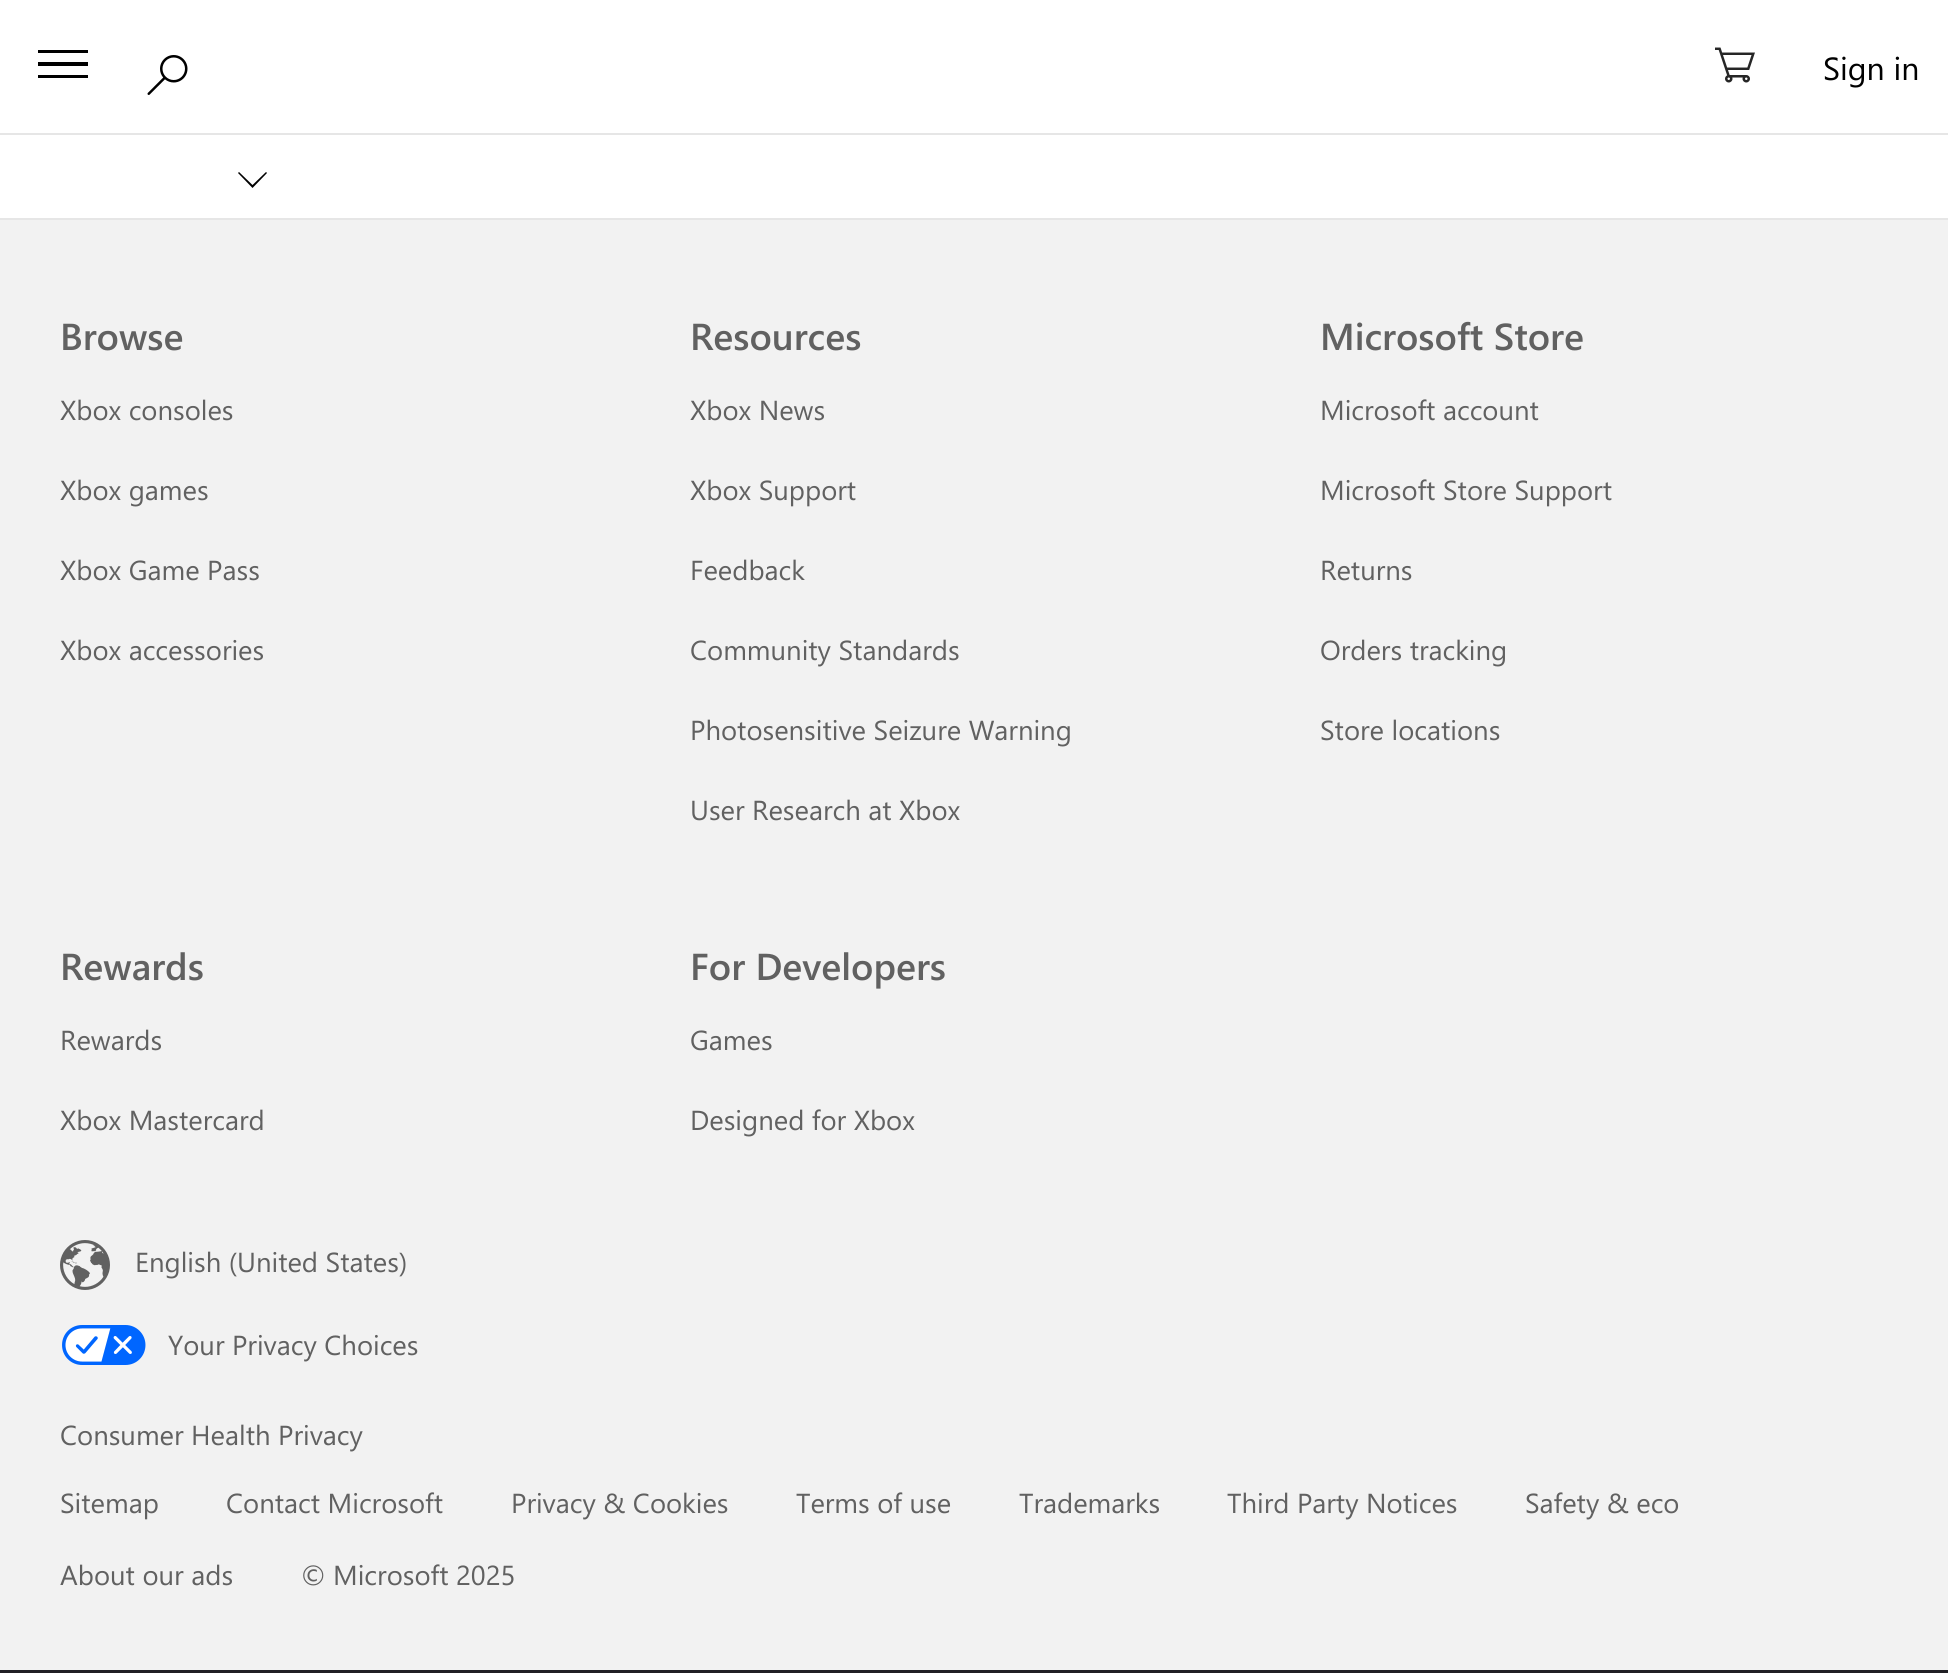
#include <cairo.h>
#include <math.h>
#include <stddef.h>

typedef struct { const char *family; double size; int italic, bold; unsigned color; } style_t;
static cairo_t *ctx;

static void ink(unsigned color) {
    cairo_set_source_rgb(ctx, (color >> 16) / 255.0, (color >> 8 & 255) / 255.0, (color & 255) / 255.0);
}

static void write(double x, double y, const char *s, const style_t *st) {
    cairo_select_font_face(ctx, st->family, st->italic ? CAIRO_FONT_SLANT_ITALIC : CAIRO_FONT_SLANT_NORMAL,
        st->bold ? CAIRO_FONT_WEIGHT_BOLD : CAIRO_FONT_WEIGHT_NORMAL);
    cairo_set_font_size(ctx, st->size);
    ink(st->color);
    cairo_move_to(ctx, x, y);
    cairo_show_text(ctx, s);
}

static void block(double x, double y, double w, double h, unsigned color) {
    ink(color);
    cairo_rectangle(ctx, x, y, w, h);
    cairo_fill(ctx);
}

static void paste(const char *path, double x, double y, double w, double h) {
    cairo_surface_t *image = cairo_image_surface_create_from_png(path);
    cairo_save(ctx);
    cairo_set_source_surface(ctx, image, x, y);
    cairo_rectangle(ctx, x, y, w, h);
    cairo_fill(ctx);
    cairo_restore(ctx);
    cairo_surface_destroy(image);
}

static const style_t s1 = {"Segoe UI", 32, 0, 0, 0x000000};
static const style_t s2 = {"Segoe UI SemiBold", 37.5, 0, 0, 0x616161};
static const style_t s3 = {"Segoe UI", 27.5, 0, 0, 0x616161};

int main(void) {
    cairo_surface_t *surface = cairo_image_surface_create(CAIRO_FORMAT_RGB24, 1948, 1673);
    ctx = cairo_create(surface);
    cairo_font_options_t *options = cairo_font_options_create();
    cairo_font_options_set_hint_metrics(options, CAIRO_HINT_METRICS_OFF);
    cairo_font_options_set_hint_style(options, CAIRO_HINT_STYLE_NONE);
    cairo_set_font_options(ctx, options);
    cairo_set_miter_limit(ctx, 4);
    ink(0x201f24);
    cairo_paint(ctx);
    block(0, 0, 1948, 133, 0xffffff);
    block(0, 133, 1948, 2, 0xe6e6e6);
    ink(0x000000);
    cairo_new_path(ctx);
    cairo_move_to(ctx, 88, 53);
    cairo_line_to(ctx, 38, 53);
    cairo_line_to(ctx, 38, 50);
    cairo_line_to(ctx, 88, 50);
    cairo_close_path(ctx);
    cairo_move_to(ctx, 88, 78);
    cairo_line_to(ctx, 38, 78);
    cairo_line_to(ctx, 38, 75);
    cairo_line_to(ctx, 88, 75);
    cairo_close_path(ctx);
    cairo_move_to(ctx, 88, 66);
    cairo_line_to(ctx, 38, 66);
    cairo_line_to(ctx, 38, 62);
    cairo_line_to(ctx, 88, 62);
    cairo_close_path(ctx);
    cairo_fill(ctx);
    paste("pic1.png", 147, 55, 41, 40);
    paste("pic2.png", 1715, 47, 40, 36);
    write(1823, 80, "Sign in", &s1);
    block(0, 135, 1948, 83, 0xffffff);
    block(0, 218, 1948, 2, 0xe6e6e6);
    ink(0x000000);
    cairo_new_path(ctx);
    cairo_move_to(ctx, 266, 172);
    cairo_line_to(ctx, 267, 173);
    cairo_line_to(ctx, 252.5, 188);
    cairo_line_to(ctx, 238, 173);
    cairo_line_to(ctx, 239, 172);
    cairo_line_to(ctx, 252.5, 185);
    cairo_close_path(ctx);
    cairo_fill(ctx);
    block(0, 220, 1948, 1450, 0xf2f2f2);
    write(60, 350, "Browse", &s2);
    write(60, 420, "Xbox consoles", &s3);
    write(60, 500, "Xbox games", &s3);
    write(60, 580, "Xbox Game Pass", &s3);
    write(60, 660, "Xbox accessories", &s3);
    write(690, 350, "Resources", &s2);
    write(690, 420, "Xbox News", &s3);
    write(690, 500, "Xbox Support", &s3);
    write(690, 580, "Feedback", &s3);
    write(690, 660, "Community Standards", &s3);
    write(690, 740, "Photosensitive Seizure Warning", &s3);
    write(690, 820, "User Research at Xbox", &s3);
    write(1320, 350, "Microsoft Store", &s2);
    write(1320, 420, "Microsoft account", &s3);
    write(1320, 500, "Microsoft Store Support", &s3);
    write(1320, 580, "Returns", &s3);
    write(1320, 660, "Orders tracking", &s3);
    write(1320, 740, "Store locations", &s3);
    write(60, 980, "Rewards", &s2);
    write(60, 1050, "Rewards", &s3);
    write(60, 1130, "Xbox Mastercard", &s3);
    write(690, 980, "For Developers", &s2);
    write(690, 1050, "Games", &s3);
    write(690, 1130, "Designed for Xbox", &s3);
    paste("pic3.png", 60, 1240, 50, 50);
    write(135, 1272, "English (United States)", &s3);
    paste("pic4.png", 62, 1325, 84, 40);
    write(168, 1355, "Your Privacy Choices", &s3);
    write(60, 1445, "Consumer Health Privacy", &s3);
    write(60, 1513, "Sitemap", &s3);
    write(226, 1513, "Contact Microsoft", &s3);
    write(511, 1513, "Privacy & Cookies", &s3);
    write(796, 1513, "Terms of use", &s3);
    write(1019, 1513, "Trademarks", &s3);
    write(1227, 1513, "Third Party Notices", &s3);
    write(1525, 1513, "Safety & eco", &s3);
    write(60, 1585, "About our ads", &s3);
    write(301, 1585, "© Microsoft 2025", &s3);
    cairo_surface_write_to_png(surface, "screenshot.png");
    cairo_font_options_destroy(options);
    cairo_destroy(ctx);
    cairo_surface_destroy(surface);
    return 0;
}
